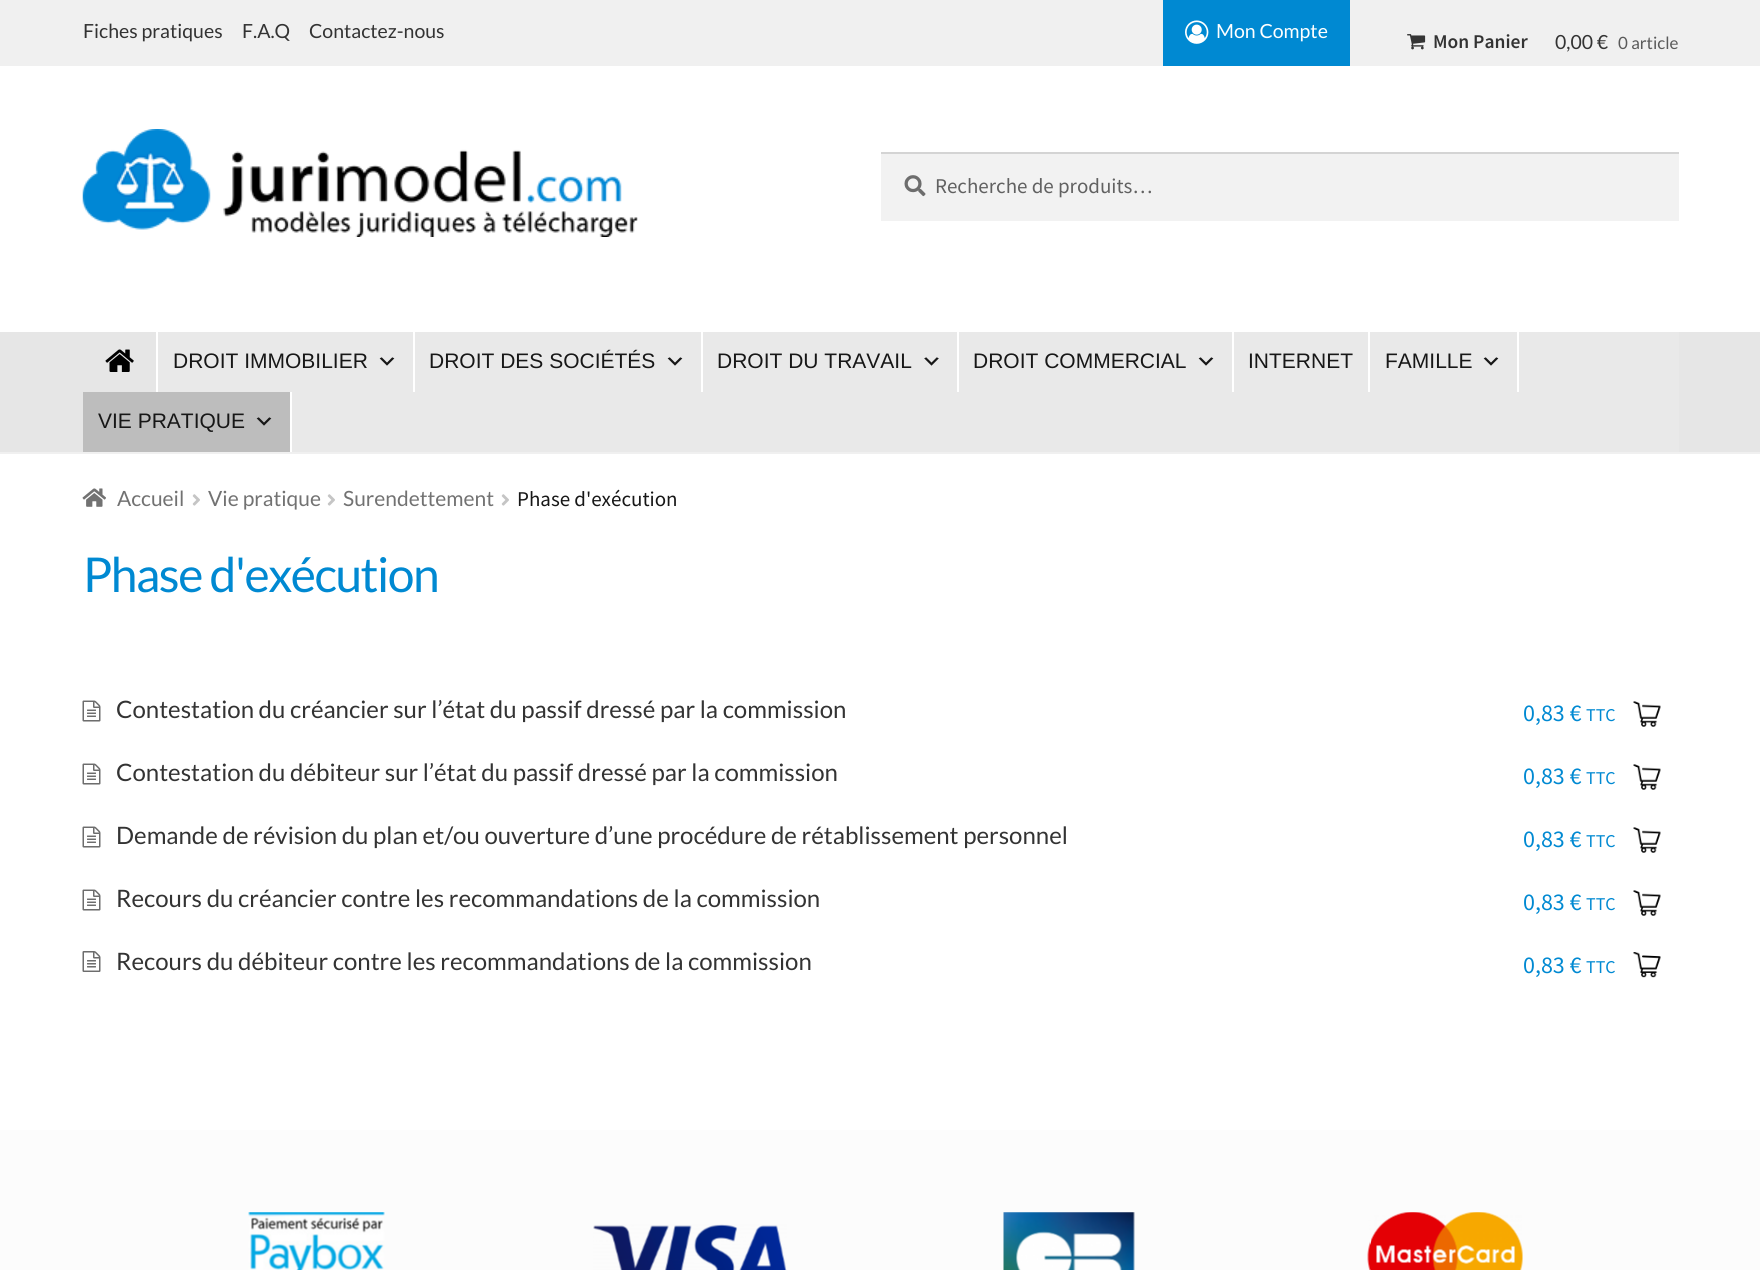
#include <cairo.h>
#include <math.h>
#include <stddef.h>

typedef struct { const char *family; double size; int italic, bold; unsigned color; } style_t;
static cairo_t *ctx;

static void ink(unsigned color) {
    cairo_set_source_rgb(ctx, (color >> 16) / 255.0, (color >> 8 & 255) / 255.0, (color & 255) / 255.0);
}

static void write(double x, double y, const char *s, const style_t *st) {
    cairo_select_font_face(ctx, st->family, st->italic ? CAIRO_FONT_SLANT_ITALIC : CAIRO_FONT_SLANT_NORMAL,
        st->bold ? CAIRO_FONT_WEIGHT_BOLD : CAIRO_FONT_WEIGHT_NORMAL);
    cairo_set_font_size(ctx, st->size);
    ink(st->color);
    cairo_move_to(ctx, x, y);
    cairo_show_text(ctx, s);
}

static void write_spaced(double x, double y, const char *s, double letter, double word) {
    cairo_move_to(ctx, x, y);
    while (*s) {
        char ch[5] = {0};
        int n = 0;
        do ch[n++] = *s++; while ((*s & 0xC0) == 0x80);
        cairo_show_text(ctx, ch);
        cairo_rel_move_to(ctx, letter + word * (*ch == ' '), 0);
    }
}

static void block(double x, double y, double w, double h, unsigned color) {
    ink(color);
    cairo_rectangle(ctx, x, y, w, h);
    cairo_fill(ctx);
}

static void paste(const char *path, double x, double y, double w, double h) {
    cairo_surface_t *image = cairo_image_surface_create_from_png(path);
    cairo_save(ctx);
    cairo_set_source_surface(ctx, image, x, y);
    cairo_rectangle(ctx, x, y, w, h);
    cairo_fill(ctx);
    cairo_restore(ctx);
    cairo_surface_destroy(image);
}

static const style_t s1 = {"Lato", 19.5, 0, 0, 0x333333};
static const style_t s2 = {"Lato", 19.5, 0, 0, 0xffffff};
static const style_t s3 = {"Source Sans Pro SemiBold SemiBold", 19.5, 0, 0, 0x333333};
static const style_t s4 = {"Lato", 17, 0, 0, 0x5a5a5a};
static const style_t s5 = {"Source Sans Pro", 21, 0, 0, 0x616161};
static const style_t s6 = {"Liberation Sans", 21, 0, 0, 0x171717};
static const style_t s7 = {"Lato", 21, 0, 0, 0x727272};
static const style_t s8 = {"Source Sans Pro", 21, 0, 0, 0x171717};
static const style_t s9 = {"Lato", 24, 0, 0, 0x333333};
static const style_t s10 = {"Source Sans Pro", 24, 0, 0, 0x0089d2};
static const style_t s11 = {"Source Sans Pro", 18, 0, 0, 0x0089d2};

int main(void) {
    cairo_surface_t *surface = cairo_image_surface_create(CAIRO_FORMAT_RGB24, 1760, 1270);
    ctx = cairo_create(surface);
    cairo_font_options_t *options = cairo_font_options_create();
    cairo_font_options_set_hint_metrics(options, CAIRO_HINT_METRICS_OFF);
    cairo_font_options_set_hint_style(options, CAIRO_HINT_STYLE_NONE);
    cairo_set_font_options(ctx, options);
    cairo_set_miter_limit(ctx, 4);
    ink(0xffffff);
    cairo_paint(ctx);
    block(0, 0, 1760, 66, 0xf0f0f0);
    write(83, 38, "Fiches pratiques", &s1);
    write(242, 38, "F.A.Q", &s1);
    write(309, 38, "Contactez-nous", &s1);
    block(1163, 0, 187, 66, 0x0089d2);
    paste("pic1.png", 1185, 20, 24, 24);
    write(1216, 38, "Mon Compte", &s2);
    paste("pic2.png", 1407, 34, 19, 16);
    write(1433, 48, "Mon Panier", &s3);
    write(1555, 49, "0,00 €", &s1);
    write(1618, 49, "0 article", &s4);
    block(0, 452, 1760, 2, 0xf0f0f0);
    paste("pic3.png", 82, 129, 556, 108);
    block(881, 154, 798, 67, 0xf2f2f2);
    paste("pic4.png", 904, 175, 22, 22);
    block(881, 152, 798, 2, 0xd4d4d4);
    write(935, 193, "Recherche de produits…", &s5);
    block(0, 332, 1760, 120, 0xe6e6e6);
    block(158, 332, 1521, 120, 0xe9e9e9);
    block(156, 332, 2, 60, 0xffffff);
    paste("pic5.png", 105, 349, 29, 23);
    block(413, 332, 2, 60, 0xffffff);
    write(173, 368, "DROIT IMMOBILIER", &s6);
    paste("pic6.png", 379, 357, 16, 9);
    block(701, 332, 2, 60, 0xffffff);
    write(429, 368, "DROIT DES SOCIÉTÉS", &s6);
    paste("pic6.png", 667, 357, 16, 9);
    block(957, 332, 2, 60, 0xffffff);
    write(717, 368, "DROIT DU TRAVAIL", &s6);
    paste("pic7.png", 924, 357, 15, 9);
    block(1232, 332, 2, 60, 0xffffff);
    write(973, 368, "DROIT COMMERCIAL", &s6);
    paste("pic6.png", 1198, 357, 16, 9);
    block(1368, 332, 2, 60, 0xffffff);
    write(1248, 368, "INTERNET", &s6);
    block(1517, 332, 2, 60, 0xffffff);
    write(1385, 368, "FAMILLE", &s6);
    paste("pic6.png", 1483, 357, 16, 9);
    block(83, 392, 207, 60, 0xbdbdbd);
    block(290, 392, 2, 60, 0xffffff);
    write(98, 428, "VIE PRATIQUE", &s6);
    paste("pic8.png", 256, 417, 16, 9);
    paste("pic9.png", 82, 488, 24, 19);
    write(117, 506, "Accueil", &s7);
    paste("pic10.png", 192, 494, 8, 12);
    write(208, 506, "Vie pratique", &s7);
    paste("pic10.png", 327, 494, 8, 12);
    write(343, 506, "Surendettement", &s7);
    paste("pic10.png", 501, 494, 8, 12);
    write(517, 506, "Phase d'exécution", &s8);
    cairo_select_font_face(ctx, "Lato", CAIRO_FONT_SLANT_NORMAL, CAIRO_FONT_WEIGHT_NORMAL);
    cairo_set_font_size(ctx, 48);
    ink(0x0089d2);
    write_spaced(83, 592, "Phase d'exécution", -1.5, 0);
    paste("pic11.png", 82, 700, 19, 22);
    write(116, 718, "Contestation du créancier sur l’état du passif dressé par la commission", &s9);
    write(1523, 721, "0,83 €", &s10);
    write(1586, 721, "TTC", &s11);
    paste("pic12.png", 1633, 701, 28, 26);
    paste("pic11.png", 82, 763, 19, 22);
    write(116, 781, "Contestation du débiteur sur l’état du passif dressé par la commission", &s9);
    write(1523, 784, "0,83 €", &s10);
    write(1586, 784, "TTC", &s11);
    paste("pic12.png", 1633, 764, 28, 26);
    paste("pic11.png", 82, 826, 19, 22);
    write(116, 844, "Demande de révision du plan et/ou ouverture d’une procédure de rétablissement personnel", &s9);
    write(1523, 847, "0,83 €", &s10);
    write(1586, 847, "TTC", &s11);
    paste("pic12.png", 1633, 827, 28, 26);
    paste("pic11.png", 82, 889, 19, 22);
    write(116, 907, "Recours du créancier contre les recommandations de la commission", &s9);
    write(1523, 910, "0,83 €", &s10);
    write(1586, 910, "TTC", &s11);
    paste("pic12.png", 1633, 890, 28, 26);
    paste("pic13.png", 82, 951, 19, 21);
    write(116, 970, "Recours du débiteur contre les recommandations de la commission", &s9);
    write(1523, 973, "0,83 €", &s10);
    write(1586, 973, "TTC", &s11);
    paste("pic14.png", 1633, 952, 28, 26);
    block(0, 1130, 1760, 140, 0xfcfcfc);
    paste("pic15.png", 248, 1212, 137, 58);
    paste("pic16.png", 593, 1224, 194, 46);
    paste("pic17.png", 1003, 1212, 132, 58);
    paste("pic18.png", 1367, 1212, 156, 58);
    cairo_surface_write_to_png(surface, "screenshot.png");
    cairo_font_options_destroy(options);
    cairo_destroy(ctx);
    cairo_surface_destroy(surface);
    return 0;
}
